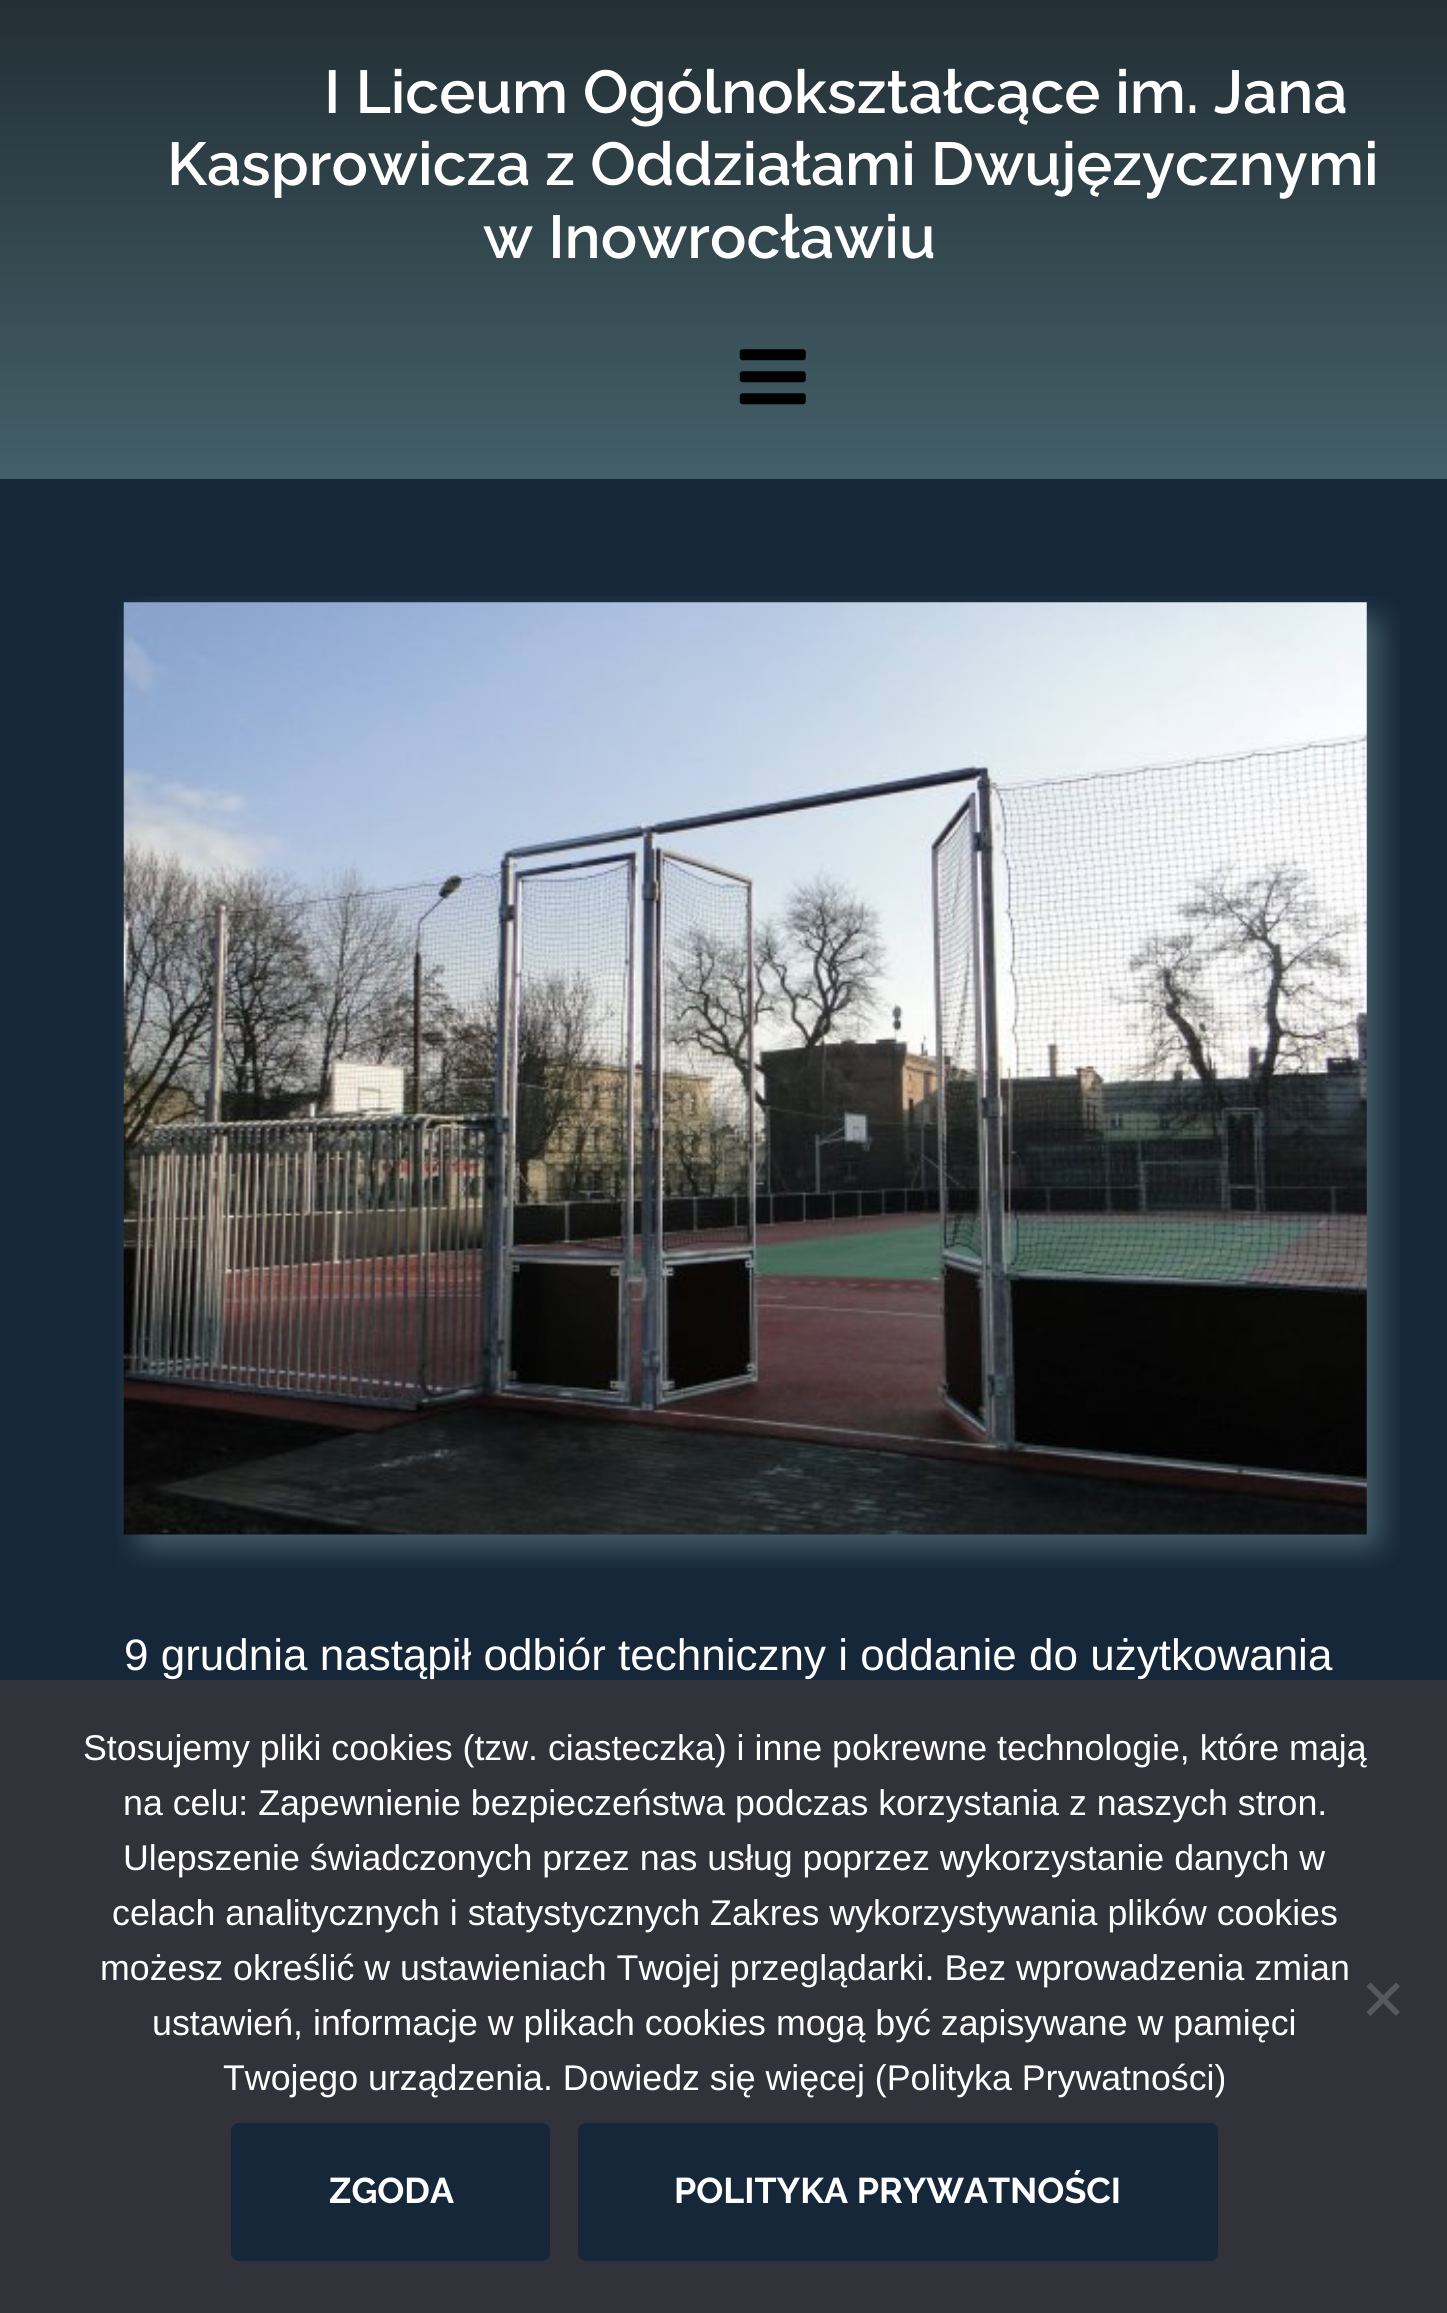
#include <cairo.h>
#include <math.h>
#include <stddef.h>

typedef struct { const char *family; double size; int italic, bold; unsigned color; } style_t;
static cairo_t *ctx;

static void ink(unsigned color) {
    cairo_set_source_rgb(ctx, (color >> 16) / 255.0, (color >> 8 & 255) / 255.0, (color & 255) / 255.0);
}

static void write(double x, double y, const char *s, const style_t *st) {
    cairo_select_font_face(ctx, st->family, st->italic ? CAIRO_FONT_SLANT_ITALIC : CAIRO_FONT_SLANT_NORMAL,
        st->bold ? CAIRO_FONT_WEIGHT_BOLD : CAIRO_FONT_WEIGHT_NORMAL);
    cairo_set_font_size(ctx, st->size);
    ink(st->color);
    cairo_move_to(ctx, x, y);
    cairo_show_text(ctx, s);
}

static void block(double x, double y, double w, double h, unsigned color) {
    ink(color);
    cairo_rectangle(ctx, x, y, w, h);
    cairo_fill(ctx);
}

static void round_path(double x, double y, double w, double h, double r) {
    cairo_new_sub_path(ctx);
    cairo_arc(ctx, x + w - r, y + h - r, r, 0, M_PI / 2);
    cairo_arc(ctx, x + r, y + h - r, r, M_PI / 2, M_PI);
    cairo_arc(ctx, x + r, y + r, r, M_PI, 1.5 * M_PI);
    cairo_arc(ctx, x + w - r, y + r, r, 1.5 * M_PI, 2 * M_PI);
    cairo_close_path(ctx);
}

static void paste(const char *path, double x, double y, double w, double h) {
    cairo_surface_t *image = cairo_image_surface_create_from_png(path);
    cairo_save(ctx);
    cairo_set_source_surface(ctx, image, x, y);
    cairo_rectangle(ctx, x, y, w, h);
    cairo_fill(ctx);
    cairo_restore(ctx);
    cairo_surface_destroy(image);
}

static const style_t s1 = {"Raleway SemiBold", 60.5, 0, 0, 0xffffff};
static const style_t s2 = {"Liberation Sans", 44, 0, 0, 0xffffff};
static const style_t s3 = {"Liberation Sans", 35.75, 0, 0, 0xffffff};
static const style_t s4 = {"Raleway", 35.75, 0, 1, 0xffffff};

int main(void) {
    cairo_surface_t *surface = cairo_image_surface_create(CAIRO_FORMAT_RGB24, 1447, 2313);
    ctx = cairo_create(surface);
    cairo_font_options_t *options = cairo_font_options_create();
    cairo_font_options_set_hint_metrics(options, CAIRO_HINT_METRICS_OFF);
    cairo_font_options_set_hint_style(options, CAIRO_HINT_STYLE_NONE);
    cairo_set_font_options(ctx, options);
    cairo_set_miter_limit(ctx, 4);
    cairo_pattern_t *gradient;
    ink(0x162739);
    cairo_paint(ctx);
    gradient = cairo_pattern_create_linear(725, 0, 725, 479);
    cairo_pattern_add_color_stop_rgba(gradient, 0, 0.133, 0.184, 0.204, 1);
    cairo_pattern_add_color_stop_rgba(gradient, 1, 0.267, 0.373, 0.408, 1);
    cairo_set_source(ctx, gradient);
    cairo_pattern_destroy(gradient);
    cairo_rectangle(ctx, 0, 0, 1447, 479);
    cairo_fill(ctx);
    write(324, 113, "I Liceum Ogólnokształcące im. Jana", &s1);
    write(167, 185, "Kasprowicza z Oddziałami Dwujęzycznymi", &s1);
    write(483, 258, "w Inowrocławiu", &s1);
    paste("pic1.png", 739, 349, 67, 56);
    paste("pic2.png", 117, 596, 1283, 972);
    write(124, 1670, "9 grudnia nastąpił odbiór techniczny i oddanie do użytkowania", &s2);
    block(0, 1680, 1447, 633, 0x32323a);
    write(83, 1760, "Stosujemy pliki cookies (tzw. ciasteczka) i inne pokrewne technologie, które mają", &s3);
    write(123, 1815, "na celu: Zapewnienie bezpieczeństwa podczas korzystania z naszych stron.", &s3);
    write(123, 1870, "Ulepszenie świadczonych przez nas usług poprzez wykorzystanie danych w", &s3);
    write(112, 1925, "celach analitycznych i statystycznych Zakres wykorzystywania plików cookies", &s3);
    write(100, 1980, "możesz określić w ustawieniach Twojej przeglądarki. Bez wprowadzenia zmian", &s3);
    write(152, 2035, "ustawień, informacje w plikach cookies mogą być zapisywane w pamięci", &s3);
    write(223, 2090, "Twojego urządzenia. Dowiedz się więcej (Polityka Prywatności)", &s3);
    ink(0x59595d);
    cairo_new_path(ctx);
    cairo_move_to(ctx, 1396, 1982.5);
    cairo_line_to(ctx, 1400, 1986.5);
    cairo_line_to(ctx, 1370.5, 2016);
    cairo_line_to(ctx, 1366.5, 2012);
    cairo_close_path(ctx);
    cairo_fill(ctx);
    cairo_new_path(ctx);
    cairo_move_to(ctx, 1366.5, 1986.5);
    cairo_line_to(ctx, 1370.5, 1982.5);
    cairo_line_to(ctx, 1400, 2012);
    cairo_line_to(ctx, 1396, 2016);
    cairo_close_path(ctx);
    cairo_fill(ctx);
    ink(0x162739);
    round_path(232.5, 2124.5, 316, 135, 6.5);
    cairo_fill_preserve(ctx);
    cairo_set_line_width(ctx, 3);
    cairo_stroke(ctx);
    write(329, 2203, "ZGODA", &s4);
    ink(0x162739);
    round_path(579.5, 2124.5, 637, 135, 6.5);
    cairo_fill_preserve(ctx);
    cairo_stroke(ctx);
    write(674, 2203, "POLITYKA PRYWATNOŚCI", &s4);
    cairo_surface_write_to_png(surface, "screenshot.png");
    cairo_font_options_destroy(options);
    cairo_destroy(ctx);
    cairo_surface_destroy(surface);
    return 0;
}
